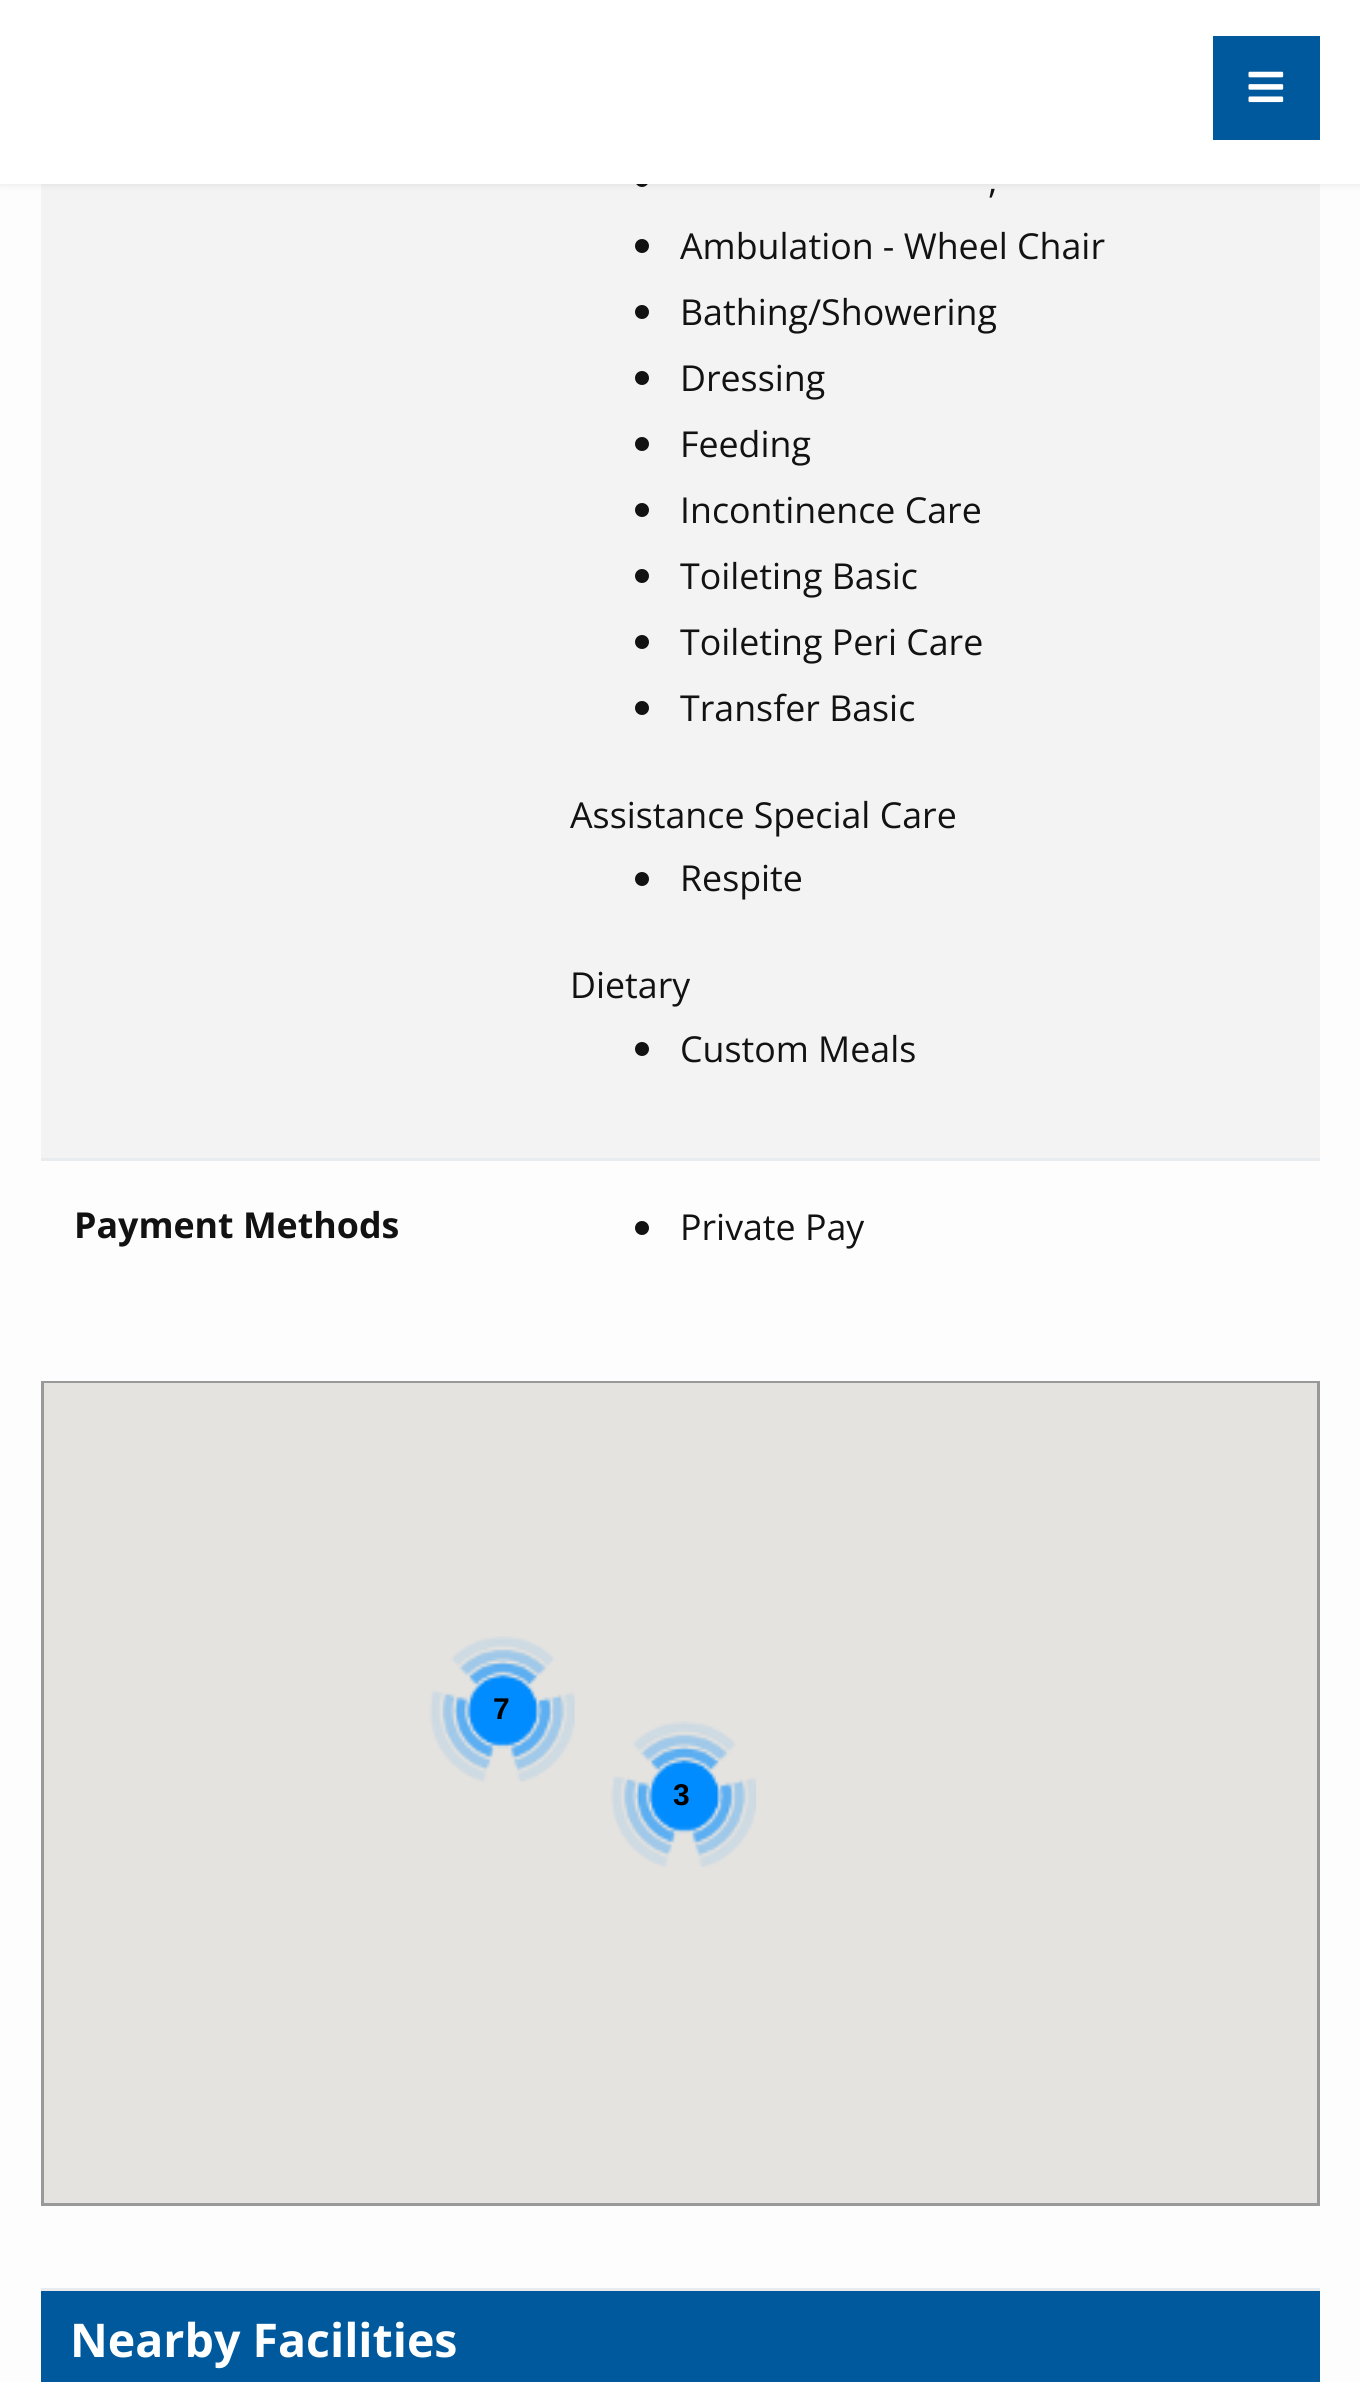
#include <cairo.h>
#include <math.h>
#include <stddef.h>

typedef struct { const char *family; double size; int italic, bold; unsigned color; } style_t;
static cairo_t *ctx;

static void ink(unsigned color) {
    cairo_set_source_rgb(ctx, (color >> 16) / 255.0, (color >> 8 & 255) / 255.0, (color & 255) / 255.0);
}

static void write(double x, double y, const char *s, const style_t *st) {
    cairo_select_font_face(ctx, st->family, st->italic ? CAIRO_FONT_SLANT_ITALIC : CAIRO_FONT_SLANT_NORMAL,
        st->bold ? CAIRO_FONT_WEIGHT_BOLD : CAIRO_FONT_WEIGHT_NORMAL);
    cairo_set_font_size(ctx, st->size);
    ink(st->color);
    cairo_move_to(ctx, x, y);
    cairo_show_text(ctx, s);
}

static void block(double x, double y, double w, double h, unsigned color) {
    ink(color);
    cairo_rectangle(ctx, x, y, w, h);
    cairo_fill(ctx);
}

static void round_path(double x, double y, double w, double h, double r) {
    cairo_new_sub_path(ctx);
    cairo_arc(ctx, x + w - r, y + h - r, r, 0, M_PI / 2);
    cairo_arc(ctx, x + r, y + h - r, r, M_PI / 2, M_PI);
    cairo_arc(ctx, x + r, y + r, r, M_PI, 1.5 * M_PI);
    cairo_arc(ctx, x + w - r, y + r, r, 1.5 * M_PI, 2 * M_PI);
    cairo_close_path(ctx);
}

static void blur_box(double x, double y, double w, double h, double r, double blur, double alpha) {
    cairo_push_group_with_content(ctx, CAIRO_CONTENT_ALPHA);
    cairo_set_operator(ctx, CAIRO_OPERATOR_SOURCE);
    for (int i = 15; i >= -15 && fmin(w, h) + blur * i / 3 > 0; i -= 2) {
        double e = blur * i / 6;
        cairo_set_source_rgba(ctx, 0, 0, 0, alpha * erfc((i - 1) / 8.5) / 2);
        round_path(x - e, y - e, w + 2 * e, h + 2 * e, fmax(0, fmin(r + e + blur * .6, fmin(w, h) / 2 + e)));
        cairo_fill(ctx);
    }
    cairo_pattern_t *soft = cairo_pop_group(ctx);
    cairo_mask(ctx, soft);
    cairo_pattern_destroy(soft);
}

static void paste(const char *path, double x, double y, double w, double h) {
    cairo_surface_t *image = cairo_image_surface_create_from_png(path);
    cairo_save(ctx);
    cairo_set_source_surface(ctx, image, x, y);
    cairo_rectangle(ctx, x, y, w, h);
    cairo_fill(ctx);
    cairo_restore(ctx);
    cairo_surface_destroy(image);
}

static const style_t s1 = {"Open Sans", 35.75, 0, 0, 0x121212};
static const style_t s2 = {"Open Sans", 35.75, 0, 1, 0x121212};
static const style_t s3 = {"Liberation Sans", 30, 0, 1, 0x000000};
static const style_t s4 = {"Open Sans", 46.5, 0, 1, 0xffffff};

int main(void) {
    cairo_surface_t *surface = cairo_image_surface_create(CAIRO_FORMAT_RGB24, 1360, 2382);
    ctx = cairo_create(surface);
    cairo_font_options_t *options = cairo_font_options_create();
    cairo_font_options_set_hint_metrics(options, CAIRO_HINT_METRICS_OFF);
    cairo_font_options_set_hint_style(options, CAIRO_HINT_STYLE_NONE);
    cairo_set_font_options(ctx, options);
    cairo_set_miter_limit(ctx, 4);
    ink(0xfdfdfd);
    cairo_paint(ctx);
    block(41, 184, 1279, 974, 0xf3f3f3);
    ink(0x121212);
    cairo_arc(ctx, 642, 180, 7, 0, 2 * M_PI);
    cairo_fill(ctx);
    ink(0x000000);
    blur_box(0, -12, 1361, 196, 0, 4, 0.1);
    block(0, 0, 1360, 184, 0xffffff);
    block(1213, 36, 107, 104, 0x00599c);
    paste("pic1.png", 1248, 71, 36, 32);
    write(988, 193, ",", &s1);
    cairo_new_path(ctx);
    cairo_arc(ctx, 642, 246, 7, 0, 2 * M_PI);
    cairo_fill(ctx);
    write(680, 259, "Ambulation - Wheel Chair", &s1);
    cairo_new_path(ctx);
    cairo_arc(ctx, 642, 312, 7, 0, 2 * M_PI);
    cairo_fill(ctx);
    write(680, 325, "Bathing/Showering", &s1);
    cairo_new_path(ctx);
    cairo_arc(ctx, 642, 378, 7, 0, 2 * M_PI);
    cairo_fill(ctx);
    write(680, 391, "Dressing", &s1);
    cairo_new_path(ctx);
    cairo_arc(ctx, 642, 444, 7, 0, 2 * M_PI);
    cairo_fill(ctx);
    write(680, 457, "Feeding", &s1);
    cairo_new_path(ctx);
    cairo_arc(ctx, 642, 510, 7, 0, 2 * M_PI);
    cairo_fill(ctx);
    write(680, 523, "Incontinence Care", &s1);
    cairo_new_path(ctx);
    cairo_arc(ctx, 642, 576, 7, 0, 2 * M_PI);
    cairo_fill(ctx);
    write(680, 589, "Toileting Basic", &s1);
    cairo_new_path(ctx);
    cairo_arc(ctx, 642, 642, 7, 0, 2 * M_PI);
    cairo_fill(ctx);
    write(680, 655, "Toileting Peri Care", &s1);
    cairo_new_path(ctx);
    cairo_arc(ctx, 642, 708, 7, 0, 2 * M_PI);
    cairo_fill(ctx);
    write(680, 721, "Transfer Basic", &s1);
    write(570, 828, "Assistance Special Care", &s1);
    cairo_new_path(ctx);
    cairo_arc(ctx, 642, 879, 7, 0, 2 * M_PI);
    cairo_fill(ctx);
    write(680, 891, "Respite", &s1);
    write(570, 998, "Dietary", &s1);
    cairo_new_path(ctx);
    cairo_arc(ctx, 642, 1049, 7, 0, 2 * M_PI);
    cairo_fill(ctx);
    write(680, 1062, "Custom Meals", &s1);
    write(74, 1238, "Payment Methods", &s2);
    block(41, 1158, 1279, 3, 0xe9ecef);
    ink(0x121212);
    cairo_new_path(ctx);
    cairo_arc(ctx, 642, 1228, 7, 0, 2 * M_PI);
    cairo_fill(ctx);
    write(680, 1240, "Private Pay", &s1);
    cairo_rectangle(ctx, 42.5, 1382.5, 1276, 822);
    ink(0x999999);
    cairo_set_line_width(ctx, 3);
    cairo_stroke(ctx);
    block(44, 1383, 1273, 820, 0xe5e3df);
    paste("pic2.png", 429, 1636, 146, 146);
    write(493, 1719, "7", &s3);
    paste("pic3.png", 611, 1721, 146, 146);
    write(673, 1805, "3", &s3);
    block(41, 2291, 1279, 91, 0x00599c);
    block(41, 2288, 1279, 3, 0xe9ecef);
    write(70, 2357, "Nearby Facilities", &s4);
    cairo_surface_write_to_png(surface, "screenshot.png");
    cairo_font_options_destroy(options);
    cairo_destroy(ctx);
    cairo_surface_destroy(surface);
    return 0;
}
